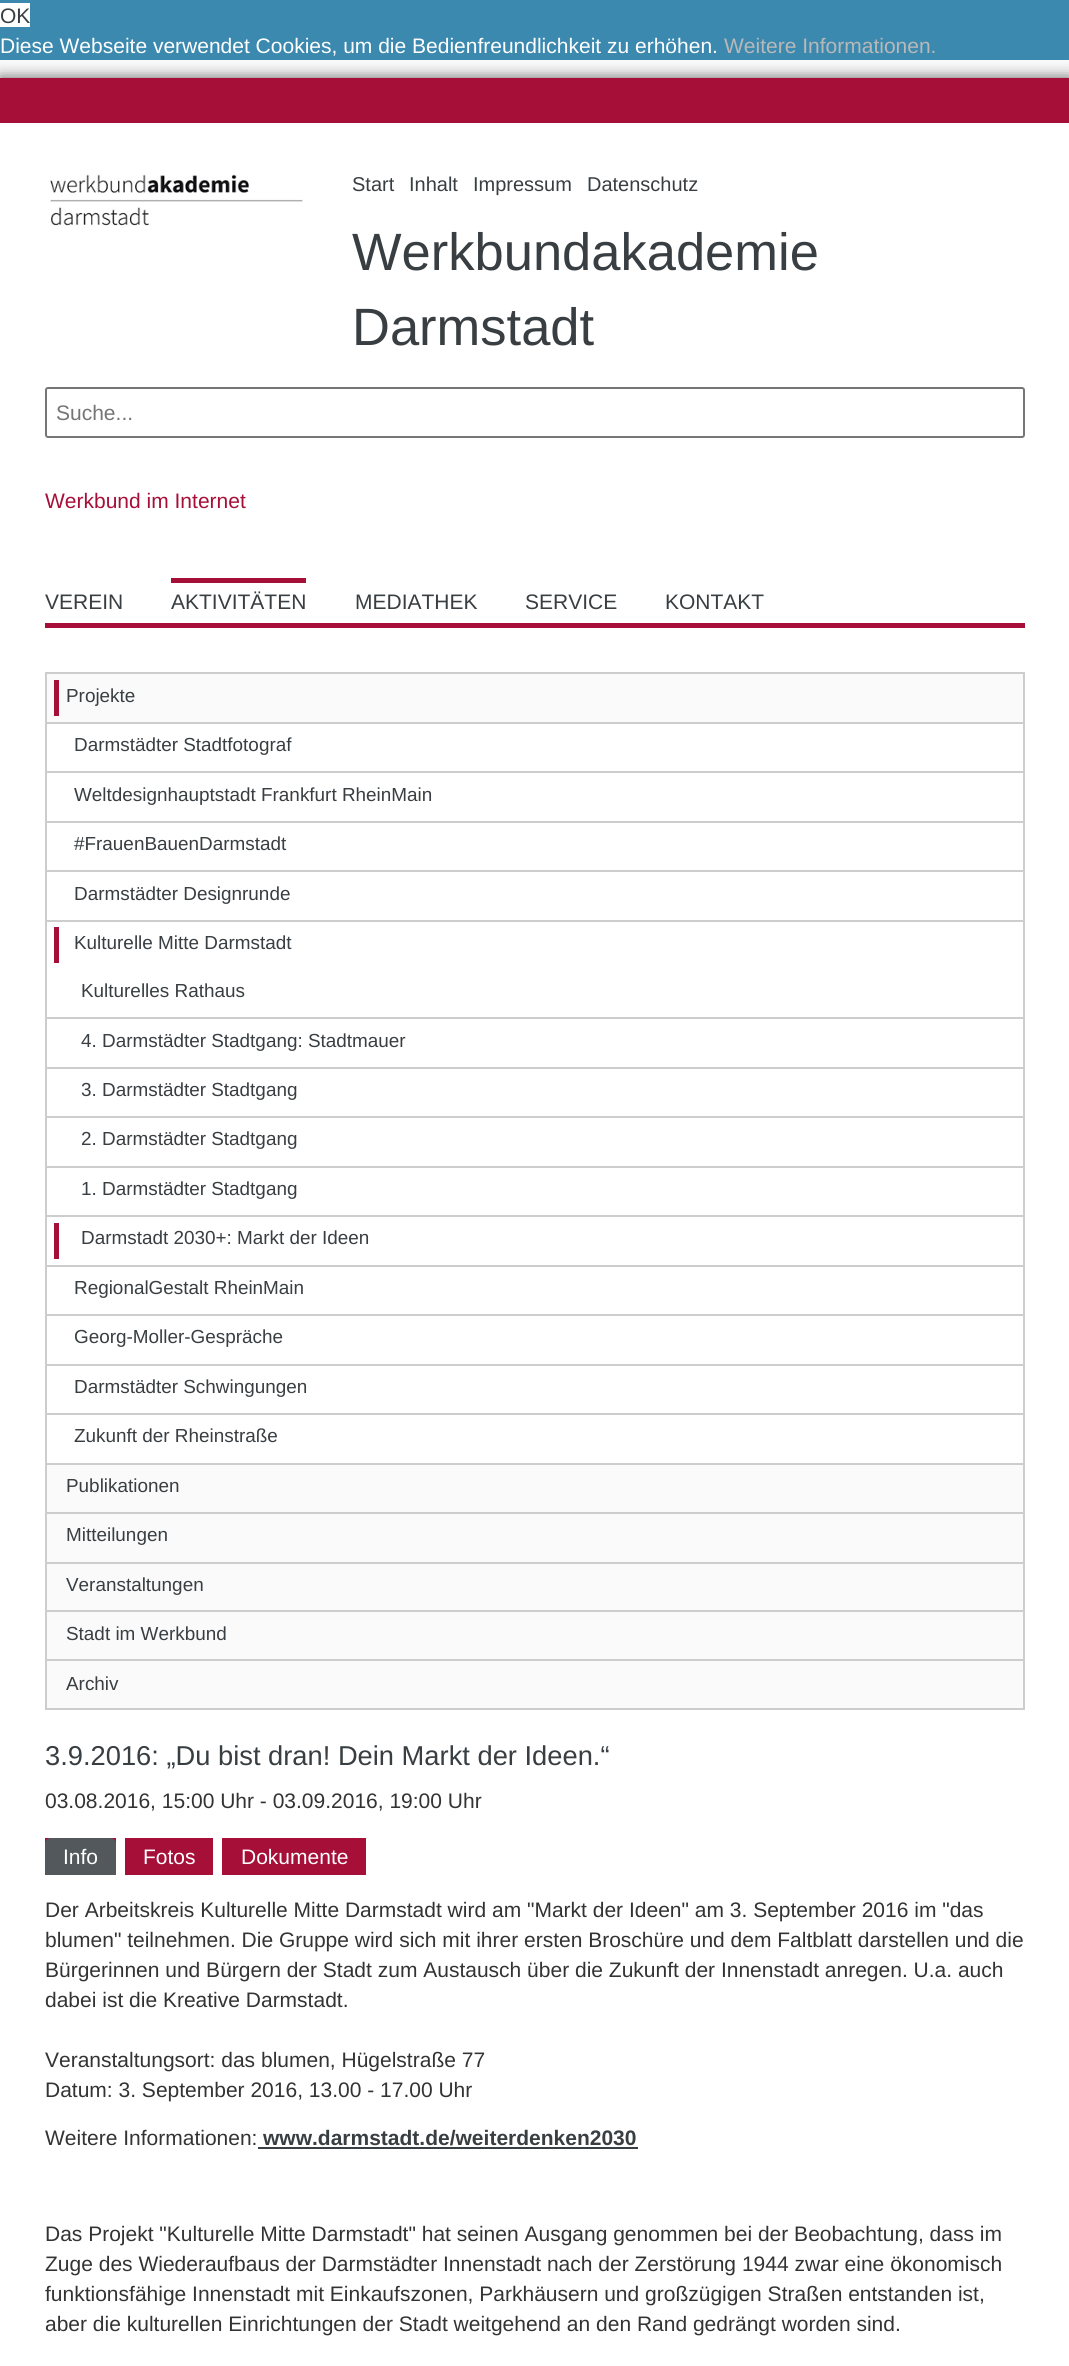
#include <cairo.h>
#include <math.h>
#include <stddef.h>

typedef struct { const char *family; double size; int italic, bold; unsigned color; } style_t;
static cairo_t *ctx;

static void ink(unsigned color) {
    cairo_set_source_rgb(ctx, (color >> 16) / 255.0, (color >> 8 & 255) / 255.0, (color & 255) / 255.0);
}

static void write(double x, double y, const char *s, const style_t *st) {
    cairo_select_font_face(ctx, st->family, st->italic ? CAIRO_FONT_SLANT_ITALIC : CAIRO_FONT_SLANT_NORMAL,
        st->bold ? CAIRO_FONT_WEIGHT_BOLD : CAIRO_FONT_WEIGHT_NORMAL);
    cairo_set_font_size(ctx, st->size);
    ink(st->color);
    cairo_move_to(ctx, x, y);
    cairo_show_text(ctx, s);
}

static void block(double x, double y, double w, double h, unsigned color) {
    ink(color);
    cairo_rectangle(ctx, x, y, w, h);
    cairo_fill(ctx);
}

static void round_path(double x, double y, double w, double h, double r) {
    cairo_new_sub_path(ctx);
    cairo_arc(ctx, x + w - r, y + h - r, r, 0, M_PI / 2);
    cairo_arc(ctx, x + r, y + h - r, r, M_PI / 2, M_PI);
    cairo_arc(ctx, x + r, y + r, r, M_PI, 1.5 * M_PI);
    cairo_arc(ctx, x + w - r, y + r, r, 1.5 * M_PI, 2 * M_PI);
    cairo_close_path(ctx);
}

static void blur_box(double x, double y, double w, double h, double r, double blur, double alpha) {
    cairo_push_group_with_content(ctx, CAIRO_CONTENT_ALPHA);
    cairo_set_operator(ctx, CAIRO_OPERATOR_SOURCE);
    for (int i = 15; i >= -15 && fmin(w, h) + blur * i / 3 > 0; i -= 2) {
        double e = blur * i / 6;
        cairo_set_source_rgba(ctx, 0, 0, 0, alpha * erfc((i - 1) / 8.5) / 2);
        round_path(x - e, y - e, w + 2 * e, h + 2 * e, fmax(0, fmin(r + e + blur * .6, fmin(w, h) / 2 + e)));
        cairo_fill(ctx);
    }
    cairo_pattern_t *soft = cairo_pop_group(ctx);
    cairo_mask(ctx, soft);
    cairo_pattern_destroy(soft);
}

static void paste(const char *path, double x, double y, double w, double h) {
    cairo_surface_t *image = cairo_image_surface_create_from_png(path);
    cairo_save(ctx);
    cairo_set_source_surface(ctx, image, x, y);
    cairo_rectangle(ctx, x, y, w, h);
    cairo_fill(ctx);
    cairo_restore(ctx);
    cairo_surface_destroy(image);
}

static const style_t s1 = {"Liberation Sans", 21, 0, 0, 0x383e41};
static const style_t s2 = {"Liberation Sans", 21, 0, 0, 0xffffff};
static const style_t s3 = {"Liberation Sans", 21, 0, 0, 0xb8b8b8};
static const style_t s4 = {"Liberation Sans", 20, 0, 0, 0x383e41};
static const style_t s5 = {"Liberation Sans", 52.5, 0, 0, 0x383e41};
static const style_t s6 = {"Liberation Sans", 21, 0, 0, 0x757575};
static const style_t s7 = {"Liberation Sans", 21, 0, 0, 0xa60f38};
static const style_t s8 = {"Liberation Sans", 18.9, 0, 0, 0x383e41};
static const style_t s9 = {"Liberation Sans", 27.3, 0, 0, 0x383e41};
static const style_t s10 = {"Liberation Sans", 21, 0, 0, 0x333333};
static const style_t s11 = {"Liberation Sans", 21, 0, 1, 0x383e41};

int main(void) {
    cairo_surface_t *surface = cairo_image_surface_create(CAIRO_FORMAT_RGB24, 1069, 2366);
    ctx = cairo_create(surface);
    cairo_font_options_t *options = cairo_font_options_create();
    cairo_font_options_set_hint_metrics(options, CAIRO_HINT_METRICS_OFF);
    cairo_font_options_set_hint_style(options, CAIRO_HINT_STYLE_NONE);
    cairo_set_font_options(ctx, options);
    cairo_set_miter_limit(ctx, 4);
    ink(0xfafafa);
    cairo_paint(ctx);
    block(0, 0, 1069, 60, 0x3b89af);
    block(0, 3, 30, 24, 0xffffff);
    write(0, 23, "OK", &s1);
    ink(0x5d5d5d);
    blur_box(0, 78, 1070, 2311, 0, 7.5, 1);
    write(0, 53, "Diese Webseite verwendet Cookies, um die Bedienfreundlichkeit zu erhöhen.", &s2);
    write(724, 53, "Weitere Informationen.", &s3);
    block(0, 123, 1069, 2243, 0xffffff);
    block(0, 78, 1069, 45, 0xa60f38);
    paste("pic1.png", 50, 174, 253, 52);
    write(352, 191, "Start", &s4);
    write(409, 191, "Inhalt", &s4);
    write(473, 191, "Impressum", &s4);
    write(587, 191, "Datenschutz", &s4);
    write(352, 270, "Werkbundakademie", &s5);
    write(352, 345, "Darmstadt", &s5);
    round_path(46, 388, 978, 49, 2);
    ink(0x767676);
    cairo_stroke(ctx);
    write(56, 420, "Suche...", &s6);
    write(45, 508, "Werkbund im Internet", &s7);
    block(45, 623, 980, 5, 0xa60f38);
    write(45, 609, "VEREIN", &s1);
    block(171, 578, 135, 5, 0xa60f38);
    write(171, 609, "AKTIVITÄTEN", &s1);
    write(355, 609, "MEDIATHEK", &s1);
    write(525, 609, "SERVICE", &s1);
    write(665, 609, "KONTAKT", &s1);
    ink(0xfafafa);
    cairo_rectangle(ctx, 46, 673, 978, 1036);
    cairo_fill_preserve(ctx);
    ink(0xcdcdcd);
    cairo_stroke(ctx);
    block(54, 680, 5, 36, 0xa60f38);
    write(66, 702, "Projekte", &s8);
    block(47, 724, 976, 739, 0xffffff);
    block(47, 722, 976, 2, 0xcdcdcd);
    write(74, 751, "Darmstädter Stadtfotograf", &s8);
    block(47, 771, 976, 2, 0xcdcdcd);
    write(74, 801, "Weltdesignhauptstadt Frankfurt RheinMain", &s8);
    block(47, 821, 976, 2, 0xcdcdcd);
    write(74, 850, "#FrauenBauenDarmstadt", &s8);
    block(47, 870, 976, 2, 0xcdcdcd);
    write(74, 900, "Darmstädter Designrunde", &s8);
    block(47, 920, 976, 2, 0xcdcdcd);
    block(54, 927, 5, 36, 0xa60f38);
    write(74, 949, "Kulturelle Mitte Darmstadt", &s8);
    write(81, 997, "Kulturelles Rathaus", &s8);
    block(47, 1017, 976, 2, 0xcdcdcd);
    write(81, 1047, "4. Darmstädter Stadtgang: Stadtmauer", &s8);
    block(47, 1067, 976, 2, 0xcdcdcd);
    write(81, 1096, "3. Darmstädter Stadtgang", &s8);
    block(47, 1116, 976, 2, 0xcdcdcd);
    write(81, 1145, "2. Darmstädter Stadtgang", &s8);
    block(47, 1166, 976, 2, 0xcdcdcd);
    write(81, 1195, "1. Darmstädter Stadtgang", &s8);
    block(47, 1215, 976, 2, 0xcdcdcd);
    block(54, 1223, 5, 36, 0xa60f38);
    write(81, 1244, "Darmstadt 2030+: Markt der Ideen", &s8);
    block(47, 1265, 976, 2, 0xcdcdcd);
    write(74, 1294, "RegionalGestalt RheinMain", &s8);
    block(47, 1314, 976, 2, 0xcdcdcd);
    write(74, 1343, "Georg-Moller-Gespräche", &s8);
    block(47, 1364, 976, 2, 0xcdcdcd);
    write(74, 1393, "Darmstädter Schwingungen", &s8);
    block(47, 1413, 976, 2, 0xcdcdcd);
    write(74, 1442, "Zukunft der Rheinstraße", &s8);
    block(47, 1463, 976, 2, 0xcdcdcd);
    write(66, 1492, "Publikationen", &s8);
    block(47, 1512, 976, 2, 0xcdcdcd);
    write(66, 1541, "Mitteilungen", &s8);
    block(47, 1562, 976, 2, 0xcdcdcd);
    write(66, 1591, "Veranstaltungen", &s8);
    block(47, 1610, 976, 2, 0xcdcdcd);
    write(66, 1640, "Stadt im Werkbund", &s8);
    block(47, 1659, 976, 2, 0xcdcdcd);
    write(66, 1690, "Archiv", &s8);
    write(45, 1765, "3.9.2016: „Du bist dran! Dein Markt der Ideen.“", &s9);
    write(45, 1808, "03.08.2016, 15:00 Uhr - 03.09.2016, 19:00 Uhr", &s10);
    block(45, 1838, 71, 6, 0xa60f38);
    ink(0x52585b);
    cairo_new_path(ctx);
    cairo_move_to(ctx, 51, 1839);
    cairo_line_to(ctx, 110, 1839);
    cairo_curve_to(ctx, 113, 1839, 115, 1841, 115, 1844);
    cairo_line_to(ctx, 115, 1874);
    cairo_line_to(ctx, 46, 1874);
    cairo_line_to(ctx, 46, 1844);
    cairo_curve_to(ctx, 46, 1841, 48, 1839, 51, 1839);
    cairo_close_path(ctx);
    cairo_fill_preserve(ctx);
    cairo_stroke(ctx);
    write(63, 1864, "Info", &s2);
    block(125, 1838, 88, 37, 0xa60f38);
    write(143, 1864, "Fotos", &s2);
    block(222, 1838, 144, 37, 0xa60f38);
    write(241, 1864, "Dokumente", &s2);
    write(45, 1917, "Der Arbeitskreis Kulturelle Mitte Darmstadt wird am \"Markt der Ideen\" am 3. September 2016 im \"das", &s10);
    write(45, 1947, "blumen\" teilnehmen. Die Gruppe wird sich mit ihrer ersten Broschüre und dem Faltblatt darstellen und die", &s10);
    write(45, 1977, "Bürgerinnen und Bürgern der Stadt zum Austausch über die Zukunft der Innenstadt anregen. U.a. auch", &s10);
    write(45, 2007, "dabei ist die Kreative Darmstadt.", &s10);
    write(45, 2067, "Veranstaltungsort: das blumen, Hügelstraße 77", &s10);
    write(45, 2097, "Datum: 3. September 2016, 13.00 - 17.00 Uhr", &s10);
    write(45, 2145, "Weitere Informationen:", &s10);
    write(263, 2145, "www.darmstadt.de/weiterdenken2030", &s11);
    block(258, 2147, 380, 2, 0x383e41);
    write(45, 2241, "Das Projekt \"Kulturelle Mitte Darmstadt\" hat seinen Ausgang genommen bei der Beobachtung, dass im", &s10);
    write(45, 2271, "Zuge des Wiederaufbaus der Darmstädter Innenstadt nach der Zerstörung 1944 zwar eine ökonomisch", &s10);
    write(45, 2301, "funktionsfähige Innenstadt mit Einkaufszonen, Parkhäusern und großzügigen Straßen entstanden ist,", &s10);
    write(45, 2331, "aber die kulturellen Einrichtungen der Stadt weitgehend an den Rand gedrängt worden sind.", &s10);
    cairo_surface_write_to_png(surface, "screenshot.png");
    cairo_font_options_destroy(options);
    cairo_destroy(ctx);
    cairo_surface_destroy(surface);
    return 0;
}
